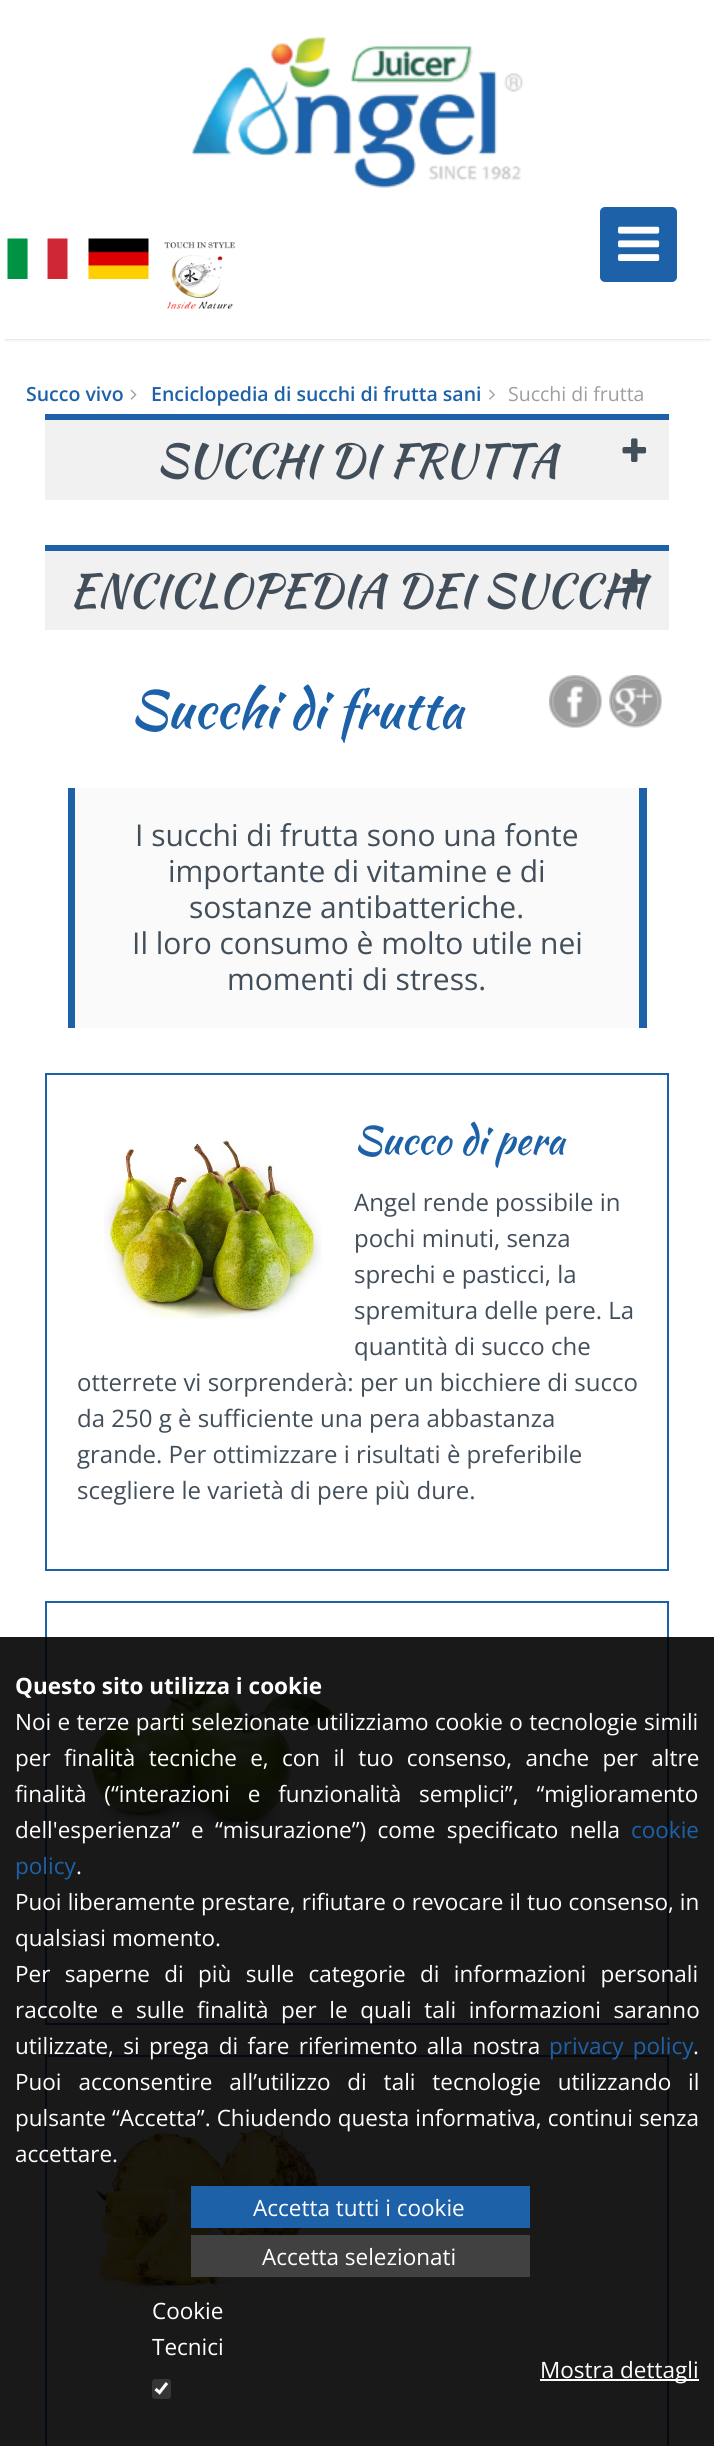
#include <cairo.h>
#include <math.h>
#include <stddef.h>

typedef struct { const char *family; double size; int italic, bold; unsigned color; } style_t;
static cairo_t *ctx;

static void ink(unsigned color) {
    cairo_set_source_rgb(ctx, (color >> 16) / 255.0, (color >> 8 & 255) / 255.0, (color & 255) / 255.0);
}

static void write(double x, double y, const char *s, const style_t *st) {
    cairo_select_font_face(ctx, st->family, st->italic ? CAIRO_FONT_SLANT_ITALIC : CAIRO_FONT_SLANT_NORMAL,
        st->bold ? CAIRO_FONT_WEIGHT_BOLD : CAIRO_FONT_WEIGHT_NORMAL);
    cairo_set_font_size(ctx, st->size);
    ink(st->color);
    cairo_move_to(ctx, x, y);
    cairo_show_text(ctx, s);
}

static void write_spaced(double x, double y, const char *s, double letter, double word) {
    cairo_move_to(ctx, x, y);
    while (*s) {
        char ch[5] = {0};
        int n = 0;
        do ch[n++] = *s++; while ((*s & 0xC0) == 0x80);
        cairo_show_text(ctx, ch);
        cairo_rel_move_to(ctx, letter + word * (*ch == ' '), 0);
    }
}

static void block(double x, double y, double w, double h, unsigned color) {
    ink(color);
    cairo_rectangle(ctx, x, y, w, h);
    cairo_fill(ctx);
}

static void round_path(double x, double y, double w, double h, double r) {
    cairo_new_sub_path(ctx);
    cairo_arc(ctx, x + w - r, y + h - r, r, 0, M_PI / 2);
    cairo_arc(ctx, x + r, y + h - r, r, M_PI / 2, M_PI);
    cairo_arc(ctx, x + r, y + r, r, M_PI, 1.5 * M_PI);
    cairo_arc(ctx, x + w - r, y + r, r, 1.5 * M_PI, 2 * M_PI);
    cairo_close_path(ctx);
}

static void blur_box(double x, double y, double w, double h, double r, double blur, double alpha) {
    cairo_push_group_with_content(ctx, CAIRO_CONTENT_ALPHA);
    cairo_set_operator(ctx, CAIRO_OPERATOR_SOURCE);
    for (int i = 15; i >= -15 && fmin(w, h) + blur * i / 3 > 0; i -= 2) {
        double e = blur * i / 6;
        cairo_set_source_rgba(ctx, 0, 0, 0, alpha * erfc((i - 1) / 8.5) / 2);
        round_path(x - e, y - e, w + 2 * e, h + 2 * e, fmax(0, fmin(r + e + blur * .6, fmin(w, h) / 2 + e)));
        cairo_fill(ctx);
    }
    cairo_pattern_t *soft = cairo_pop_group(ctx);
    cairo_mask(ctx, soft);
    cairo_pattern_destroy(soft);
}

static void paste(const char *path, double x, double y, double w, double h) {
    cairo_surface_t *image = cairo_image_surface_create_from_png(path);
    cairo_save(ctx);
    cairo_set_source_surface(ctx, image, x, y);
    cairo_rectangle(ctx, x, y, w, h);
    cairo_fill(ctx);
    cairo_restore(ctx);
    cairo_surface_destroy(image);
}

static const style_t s1 = {"Open Sans SemiBold", 19.5, 0, 0, 0x1d61a9};
static const style_t s2 = {"Open Sans", 19.5, 0, 0, 0x9e9e9e};
static const style_t s3 = {"Kaushan Script", 45, 0, 0, 0x424e5a};
static const style_t s4 = {"Kaushan Script", 52.5, 0, 0, 0x1d61a9};
static const style_t s5 = {"Open Sans", 30, 0, 0, 0x424e5a};
static const style_t s6 = {"Kaushan Script", 39, 0, 0, 0x1d61a9};
static const style_t s7 = {"Open Sans", 24, 0, 0, 0x424e5a};
static const style_t s8 = {"Open Sans", 22.5, 0, 1, 0xffffff};
static const style_t s9 = {"Open Sans", 22.5, 0, 0, 0x1d61a9};
static const style_t s10 = {"Open Sans", 22.5, 0, 0, 0xffffff};

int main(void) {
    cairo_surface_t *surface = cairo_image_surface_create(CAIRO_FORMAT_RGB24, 714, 2446);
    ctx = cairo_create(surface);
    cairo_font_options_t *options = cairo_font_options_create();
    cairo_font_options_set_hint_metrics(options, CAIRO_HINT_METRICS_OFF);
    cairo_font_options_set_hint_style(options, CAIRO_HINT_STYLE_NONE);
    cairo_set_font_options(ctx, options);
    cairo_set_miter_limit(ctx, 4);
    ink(0xffffff);
    cairo_paint(ctx);
    write(26, 401, "Succo vivo", &s1);
    paste("pic1.png", 130, 389, 7, 11);
    write(151, 401, "Enciclopedia di succhi di frutta sani", &s1);
    paste("pic2.png", 489, 389, 6, 11);
    write(508, 401, "Succhi di frutta", &s2);
    block(45, 420, 624, 80, 0xf1f1f1);
    block(45, 414, 624, 6, 0x1d61a9);
    write(156, 476, "SUCCHI DI FRUTTA", &s3);
    paste("pic3.png", 622, 438, 25, 24);
    block(45, 551, 624, 79, 0xf1f1f1);
    block(45, 545, 624, 6, 0x1d61a9);
    write(69, 606, "ENCICLOPEDIA DEI SUCCHI", &s3);
    paste("pic4.png", 622, 568, 23, 25);
    write(130, 728, "Succhi di frutta", &s4);
    paste("pic5.png", 549, 675, 53, 53);
    paste("pic6.png", 609, 675, 53, 53);
    block(75, 788, 564, 240, 0xfafafa);
    block(639, 788, 8, 240, 0x1d61a9);
    block(68, 788, 7, 240, 0x1d61a9);
    write(135, 846, "I succhi di frutta sono una fonte", &s5);
    write(168, 882, "importante di vitamine e di", &s5);
    write(189, 918, "sostanze antibatteriche.", &s5);
    write(132, 954, "Il loro consumo è molto utile nei", &s5);
    write(227, 990, "momenti di stress.", &s5);
    cairo_rectangle(ctx, 46, 1074, 622, 496);
    ink(0x1d61a9);
    cairo_stroke(ctx);
    paste("pic7.png", 104, 1134, 218, 185);
    write(354, 1154, "Succo di pera", &s6);
    write(354, 1211, "Angel rende possibile in", &s7);
    write(354, 1247, "pochi minuti, senza", &s7);
    write(354, 1283, "sprechi e pasticci, la", &s7);
    write(354, 1319, "spremitura delle pere. La", &s7);
    write(354, 1355, "quantità di succo che", &s7);
    write(77, 1391, "otterrete vi sorprenderà: per un bicchiere di succo", &s7);
    write(77, 1427, "da 250 g è sufficiente una pera abbastanza", &s7);
    write(77, 1463, "grande. Per ottimizzare i risultati è preferibile", &s7);
    write(77, 1499, "scegliere le varietà di pere più dure.", &s7);
    cairo_rectangle(ctx, 46, 1602, 622, 422);
    ink(0x1d61a9);
    cairo_stroke(ctx);
    paste("pic8.png", 82, 1685, 252, 149);
    cairo_rectangle(ctx, 46, 2056, 622, 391);
    cairo_stroke(ctx);
    paste("pic9.png", 95, 2124, 229, 177);
    paste("pic10.png", 192, 37, 332, 151);
    cairo_save(ctx);
    cairo_rectangle(ctx, 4, 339, 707, 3);
    cairo_clip(ctx);
    ink(0x000000);
    blur_box(5, 197, 705, 142, 0, 2, 0.2);
    cairo_restore(ctx);
    paste("pic11.png", 7, 238, 61, 41);
    paste("pic12.png", 88, 238, 61, 41);
    paste("pic13.png", 164, 242, 71, 67);
    round_path(600, 207, 77, 75, 5);
    cairo_fill(ctx);
    paste("pic14.png", 618, 226, 42, 35);
    cairo_set_source_rgba(ctx, 0, 0, 0, 0.9);
    cairo_rectangle(ctx, 0, 1637, 714, 809);
    cairo_fill(ctx);
    write(15, 1694, "Questo sito utilizza i cookie", &s8);
    cairo_select_font_face(ctx, "Open Sans", CAIRO_FONT_SLANT_NORMAL, CAIRO_FONT_WEIGHT_NORMAL);
    write_spaced(15, 1730, "Noi e terze parti selezionate utilizziamo cookie o tecnologie simili", 0, 0.5);
    write_spaced(15, 1766, "per finalità tecniche e, con il tuo consenso, anche per altre", 0, 7.5);
    write_spaced(15, 1802, "finalità (“interazioni e funzionalità semplici”, “miglioramento", 0, 12);
    write_spaced(15, 1838, "dell'esperienza” e “misurazione”) come specificato nella", 0, 5.5);
    write(631, 1838, "cookie", &s9);
    write(15, 1874, "policy", &s9);
    write(76, 1874, ".", &s10);
    write_spaced(15, 1910, "Puoi liberamente prestare, rifiutare o revocare il tuo consenso, in", 0, 0.25);
    write(15, 1946, "qualsiasi momento.", &s10);
    write_spaced(15, 1982, "Per saperne di più sulle categorie di informazioni personali", 0, 8.5);
    write_spaced(15, 2018, "raccolte e sulle finalità per le quali tali informazioni saranno", 0, 6.75);
    write_spaced(15, 2054, "utilizzate, si prega di fare riferimento alla nostra", 0, 3.5);
    ink(0x1d61a9);
    write_spaced(549, 2054, "privacy policy", 0, 3.5);
    write(693, 2054, ".", &s10);
    write_spaced(15, 2090, "Puoi acconsentire all’utilizzo di tali tecnologie utilizzando il", 0, 11);
    write_spaced(15, 2126, "pulsante “Accetta”. Chiudendo questa informativa, continui senza", 0, 0.25);
    write(15, 2162, "accettare.", &s10);
    block(191, 2186, 339, 42, 0x1d61a9);
    write(253, 2216, "Accetta tutti i cookie", &s10);
    block(191, 2235, 339, 42, 0x414141);
    write(262, 2265, "Accetta selezionati", &s10);
    write(152, 2319, "Cookie", &s10);
    write(152, 2355, "Tecnici", &s10);
    cairo_set_source_rgba(ctx, 0.463, 0.463, 0.463, 0.3);
    round_path(152, 2379, 19, 20, 3);
    cairo_fill(ctx);
    cairo_new_path(ctx);
    cairo_move_to(ctx, 155.5, 2389);
    cairo_line_to(ctx, 159.5, 2392.5);
    cairo_line_to(ctx, 167, 2383);
    ink(0xffffff);
    cairo_set_line_width(ctx, 3.1);
    cairo_stroke(ctx);
    block(540, 2379, 159, 2, 0xffffff);
    write(540, 2378, "Mostra dettagli", &s10);
    cairo_surface_write_to_png(surface, "screenshot.png");
    cairo_font_options_destroy(options);
    cairo_destroy(ctx);
    cairo_surface_destroy(surface);
    return 0;
}
